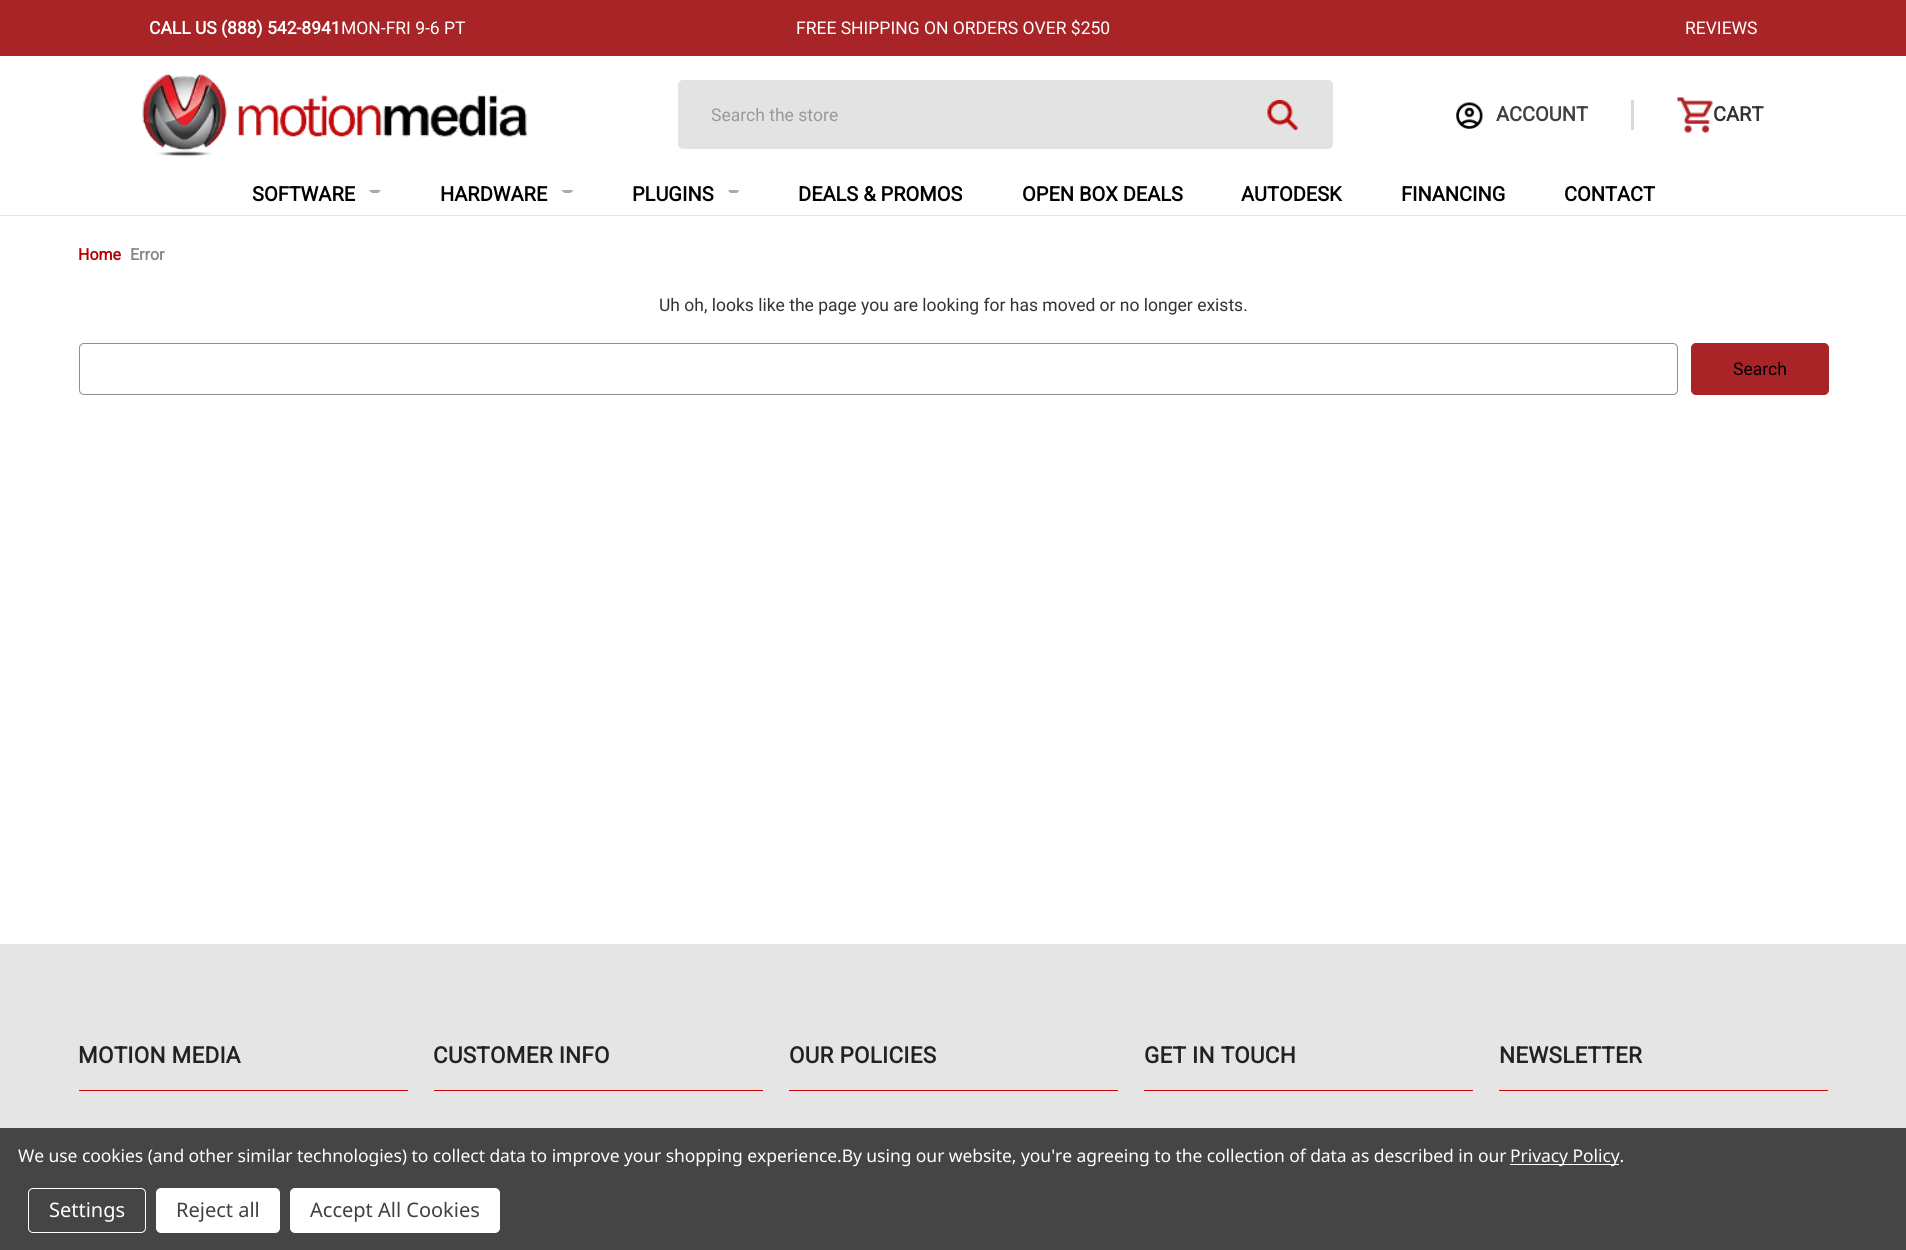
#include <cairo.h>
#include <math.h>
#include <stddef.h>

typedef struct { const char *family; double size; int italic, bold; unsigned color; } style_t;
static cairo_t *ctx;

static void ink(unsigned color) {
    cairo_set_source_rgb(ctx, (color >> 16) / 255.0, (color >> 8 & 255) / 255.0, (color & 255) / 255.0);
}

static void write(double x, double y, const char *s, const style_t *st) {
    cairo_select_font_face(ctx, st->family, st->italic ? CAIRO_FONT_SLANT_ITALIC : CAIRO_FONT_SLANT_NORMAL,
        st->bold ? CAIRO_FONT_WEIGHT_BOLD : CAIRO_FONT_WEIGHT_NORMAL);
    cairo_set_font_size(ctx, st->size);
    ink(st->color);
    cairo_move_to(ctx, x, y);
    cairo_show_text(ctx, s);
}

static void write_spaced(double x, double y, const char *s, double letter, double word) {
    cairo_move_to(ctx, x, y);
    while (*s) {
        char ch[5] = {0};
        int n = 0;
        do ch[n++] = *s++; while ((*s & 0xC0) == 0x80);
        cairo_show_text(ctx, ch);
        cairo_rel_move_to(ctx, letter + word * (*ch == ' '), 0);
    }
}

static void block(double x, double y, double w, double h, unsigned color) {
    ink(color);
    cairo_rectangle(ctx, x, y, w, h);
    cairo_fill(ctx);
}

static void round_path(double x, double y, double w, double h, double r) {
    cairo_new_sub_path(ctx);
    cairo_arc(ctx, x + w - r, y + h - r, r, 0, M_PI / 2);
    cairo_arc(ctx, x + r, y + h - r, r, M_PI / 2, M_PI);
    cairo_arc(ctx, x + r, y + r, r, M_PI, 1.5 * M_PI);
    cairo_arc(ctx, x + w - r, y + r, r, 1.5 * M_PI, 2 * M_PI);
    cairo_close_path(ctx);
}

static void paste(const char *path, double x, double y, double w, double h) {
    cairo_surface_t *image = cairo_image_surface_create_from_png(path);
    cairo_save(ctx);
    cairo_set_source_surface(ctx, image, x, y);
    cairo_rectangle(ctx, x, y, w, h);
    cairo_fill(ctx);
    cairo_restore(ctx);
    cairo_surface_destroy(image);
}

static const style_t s1 = {"Roboto", 17.5, 0, 1, 0xffffff};
static const style_t s2 = {"Roboto", 17.5, 0, 0, 0xffffff};
static const style_t s3 = {"Roboto", 17.5, 0, 0, 0x999999};
static const style_t s4 = {"Roboto", 20, 0, 1, 0x404040};
static const style_t s5 = {"Roboto", 20, 0, 1, 0x333333};
static const style_t s6 = {"Roboto", 20, 0, 1, 0x000000};
static const style_t s7 = {"Roboto", 16, 0, 1, 0xb40001};
static const style_t s8 = {"Roboto", 16, 0, 1, 0x888888};
static const style_t s9 = {"Roboto", 17.5, 0, 0, 0x333333};
static const style_t s10 = {"Roboto", 17.5, 0, 0, 0x000000};
static const style_t s11 = {"Noto Sans", 20, 0, 0, 0xffffff};
static const style_t s12 = {"Noto Sans", 20, 0, 0, 0x404040};

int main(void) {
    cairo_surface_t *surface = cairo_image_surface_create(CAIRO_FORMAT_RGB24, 1906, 1250);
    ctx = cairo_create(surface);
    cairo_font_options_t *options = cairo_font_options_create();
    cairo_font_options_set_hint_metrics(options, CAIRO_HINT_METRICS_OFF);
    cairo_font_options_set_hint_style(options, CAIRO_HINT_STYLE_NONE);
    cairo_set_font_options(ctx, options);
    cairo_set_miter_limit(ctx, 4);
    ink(0xffffff);
    cairo_paint(ctx);
    block(0, 215, 1906, 1, 0xe5e5e5);
    block(0, 0, 1906, 56, 0xa92426);
    write(149, 34, "CALL US (888) 542-8941", &s1);
    write(341, 34, "MON-FRI 9-6 PT", &s2);
    write(796, 34, "FREE SHIPPING ON ORDERS OVER $250", &s2);
    write(1685, 34, "REVIEWS", &s2);
    paste("pic1.png", 142, 73, 386, 84);
    ink(0xe3e3e3);
    round_path(678, 80, 610, 69, 5);
    cairo_fill(ctx);
    write(711, 121, "Search the store", &s3);
    ink(0xe3e3e3);
    cairo_new_path(ctx);
    cairo_move_to(ctx, 1231, 80);
    cairo_line_to(ctx, 1328, 80);
    cairo_curve_to(ctx, 1331, 80, 1333, 82, 1333, 85);
    cairo_line_to(ctx, 1333, 144);
    cairo_curve_to(ctx, 1333, 147, 1331, 149, 1328, 149);
    cairo_line_to(ctx, 1231, 149);
    cairo_close_path(ctx);
    cairo_fill(ctx);
    paste("pic2.png", 1267, 100, 31, 30);
    block(1631, 100, 3, 30, 0xd7d9dd);
    paste("pic3.png", 1456, 102, 27, 27);
    write(1496, 121, "ACCOUNT", &s4);
    paste("pic4.png", 1677, 97, 36, 36);
    write(1713, 121, "CART", &s5);
    write(252, 201, "SOFTWARE", &s6);
    ink(0xa9aaae);
    cairo_new_path(ctx);
    cairo_move_to(ctx, 370, 190);
    cairo_curve_to(ctx, 371.5, 190, 380, 189.5, 381, 190.5);
    cairo_line_to(ctx, 378, 193);
    cairo_line_to(ctx, 372, 193);
    cairo_line_to(ctx, 369, 190.5);
    cairo_close_path(ctx);
    cairo_fill(ctx);
    write(440, 201, "HARDWARE", &s6);
    ink(0xa9aaae);
    cairo_new_path(ctx);
    cairo_move_to(ctx, 562.5, 190);
    cairo_line_to(ctx, 561.5, 190.5);
    cairo_line_to(ctx, 564.5, 193);
    cairo_line_to(ctx, 570.5, 193);
    cairo_line_to(ctx, 573.5, 190.5);
    cairo_line_to(ctx, 571, 190);
    cairo_close_path(ctx);
    cairo_fill(ctx);
    write(632, 201, "PLUGINS", &s6);
    ink(0xa9aaae);
    cairo_new_path(ctx);
    cairo_move_to(ctx, 729, 190);
    cairo_line_to(ctx, 728, 190.5);
    cairo_line_to(ctx, 730.5, 193);
    cairo_line_to(ctx, 737, 193);
    cairo_line_to(ctx, 739.5, 190.5);
    cairo_line_to(ctx, 737, 190);
    cairo_close_path(ctx);
    cairo_fill(ctx);
    write(798, 201, "DEALS & PROMOS", &s6);
    write(1022, 201, "OPEN BOX DEALS", &s6);
    write(1241, 201, "AUTODESK", &s6);
    write(1401, 201, "FINANCING", &s6);
    write(1564, 201, "CONTACT", &s6);
    write(78, 260, "Home", &s7);
    write(130, 260, "Error", &s8);
    write(659, 311, "Uh oh, looks like the page you are looking for has moved or no longer exists.", &s9);
    round_path(79.5, 343.5, 1598, 51, 4.5);
    ink(0x8f8f8f);
    cairo_set_line_width(ctx, 1);
    cairo_stroke(ctx);
    ink(0xa92426);
    round_path(1691.5, 343.5, 137, 51, 4.5);
    cairo_fill_preserve(ctx);
    cairo_stroke(ctx);
    write(1733, 375, "Search", &s10);
    block(0, 944, 1906, 184, 0xe5e5e5);
    block(79, 1090, 329, 1, 0xca0906);
    cairo_select_font_face(ctx, "Roboto", CAIRO_FONT_SLANT_NORMAL, CAIRO_FONT_WEIGHT_BOLD);
    cairo_set_font_size(ctx, 22.5);
    ink(0x222222);
    write_spaced(78, 1063, "MOTION MEDIA", 0.25, 0);
    block(434, 1090, 329, 1, 0xca0906);
    ink(0x222222);
    write_spaced(433, 1063, "CUSTOMER INFO", 0.25, 0);
    block(789, 1090, 329, 1, 0xca0906);
    ink(0x222222);
    write_spaced(789, 1063, "OUR POLICIES", 0.25, 0);
    block(1144, 1090, 329, 1, 0xca0906);
    ink(0x222222);
    write_spaced(1144, 1063, "GET IN TOUCH", 0.25, 0);
    block(1499, 1090, 329, 1, 0xca0906);
    ink(0x222222);
    write_spaced(1499, 1063, "NEWSLETTER", 0.25, 0);
    block(0, 1128, 1906, 122, 0x454545);
    cairo_select_font_face(ctx, "Noto Sans", CAIRO_FONT_SLANT_NORMAL, CAIRO_FONT_WEIGHT_NORMAL);
    cairo_set_font_size(ctx, 17.5);
    ink(0xffffff);
    write_spaced(18, 1162, "We use cookies (and other similar technologies) to collect data to improve your shopping experience.By using our website, you're agreeing to the collection of data as described in our", -0.06, 0);
    block(1510, 1164, 109, 1, 0xffffff);
    write_spaced(1510, 1162, "Privacy Policy.", -0.06, 0);
    round_path(28.5, 1188.5, 117, 44, 4.5);
    cairo_stroke(ctx);
    write(49, 1217, "Settings", &s11);
    round_path(156, 1188, 124, 45, 5);
    cairo_fill(ctx);
    write(176, 1217, "Reject all", &s12);
    ink(0xffffff);
    round_path(290, 1188, 210, 45, 5);
    cairo_fill(ctx);
    write(310, 1217, "Accept All Cookies", &s12);
    cairo_surface_write_to_png(surface, "screenshot.png");
    cairo_font_options_destroy(options);
    cairo_destroy(ctx);
    cairo_surface_destroy(surface);
    return 0;
}
